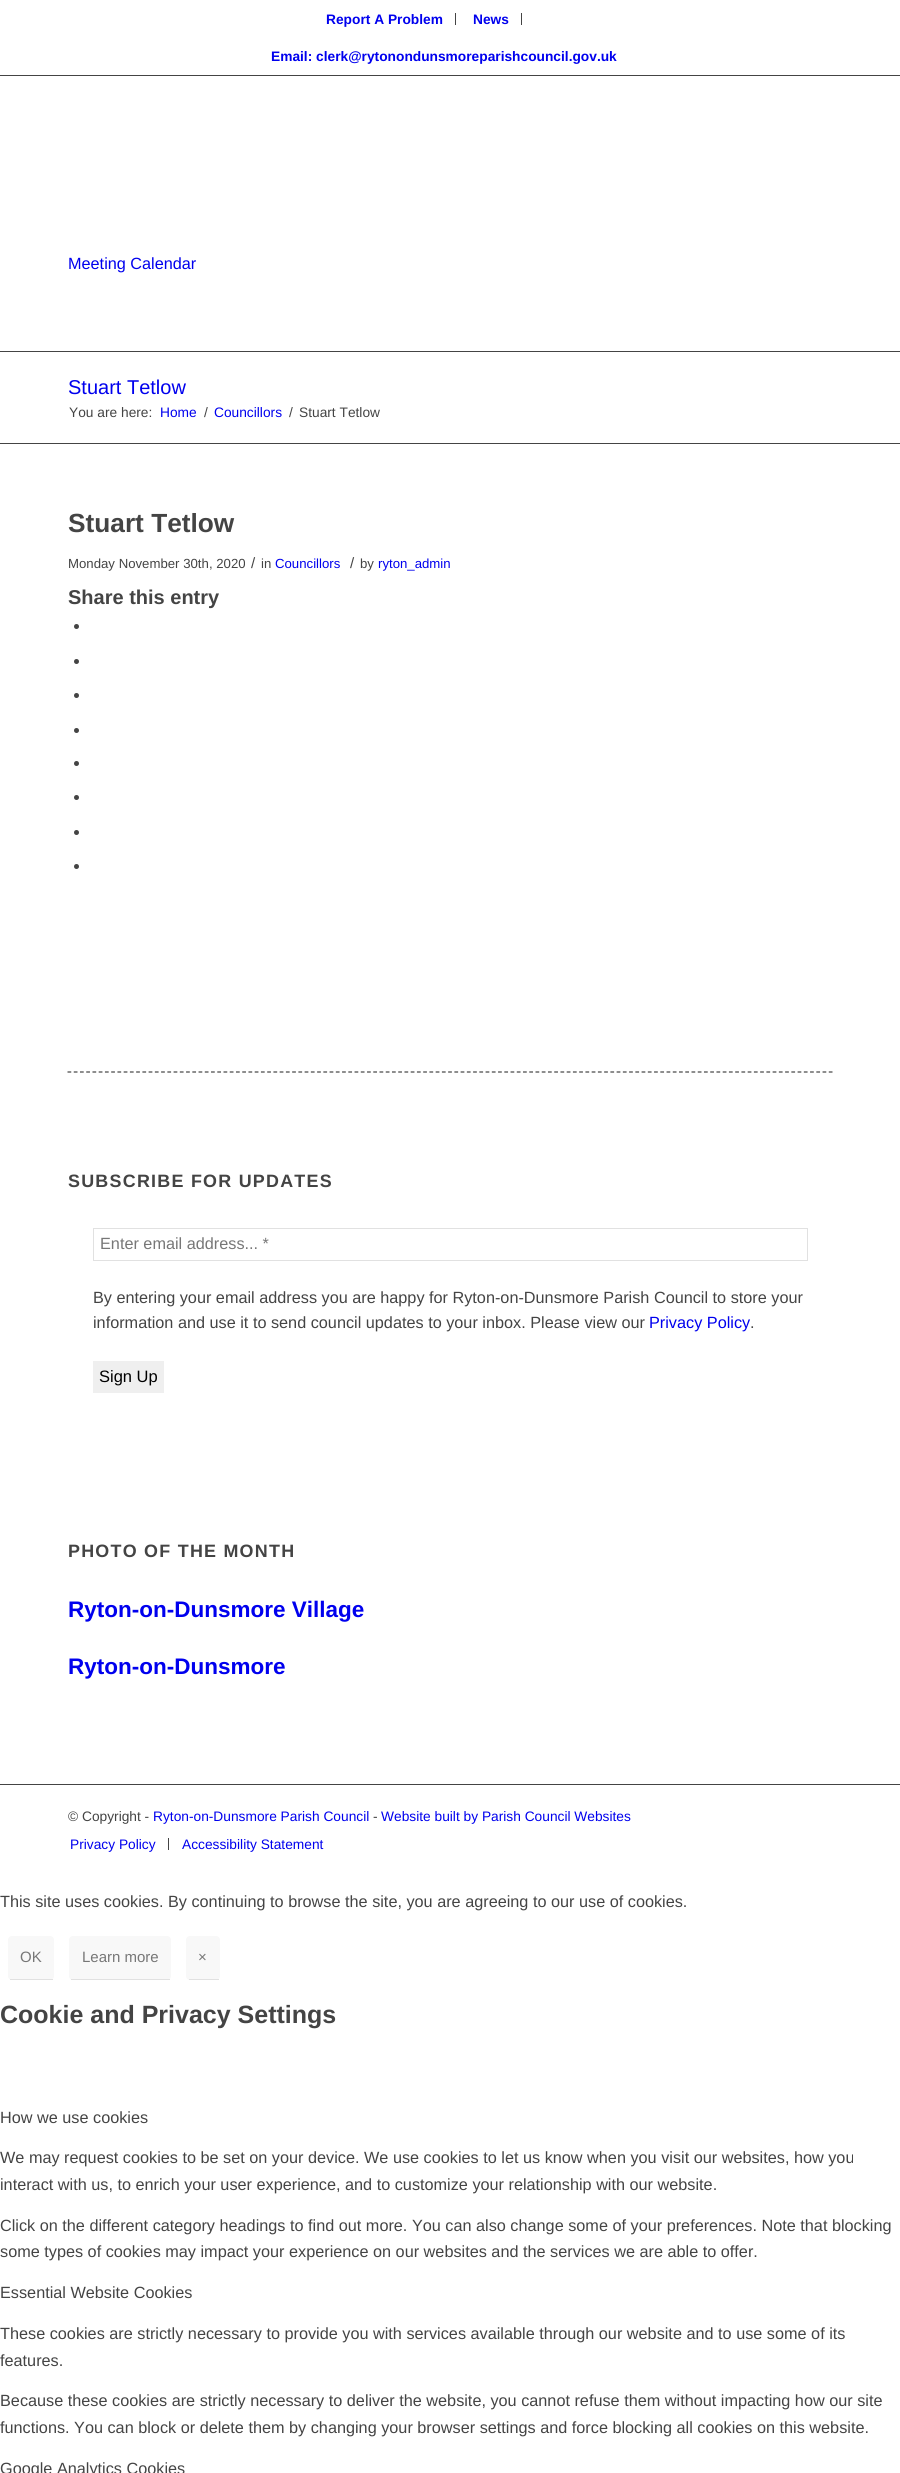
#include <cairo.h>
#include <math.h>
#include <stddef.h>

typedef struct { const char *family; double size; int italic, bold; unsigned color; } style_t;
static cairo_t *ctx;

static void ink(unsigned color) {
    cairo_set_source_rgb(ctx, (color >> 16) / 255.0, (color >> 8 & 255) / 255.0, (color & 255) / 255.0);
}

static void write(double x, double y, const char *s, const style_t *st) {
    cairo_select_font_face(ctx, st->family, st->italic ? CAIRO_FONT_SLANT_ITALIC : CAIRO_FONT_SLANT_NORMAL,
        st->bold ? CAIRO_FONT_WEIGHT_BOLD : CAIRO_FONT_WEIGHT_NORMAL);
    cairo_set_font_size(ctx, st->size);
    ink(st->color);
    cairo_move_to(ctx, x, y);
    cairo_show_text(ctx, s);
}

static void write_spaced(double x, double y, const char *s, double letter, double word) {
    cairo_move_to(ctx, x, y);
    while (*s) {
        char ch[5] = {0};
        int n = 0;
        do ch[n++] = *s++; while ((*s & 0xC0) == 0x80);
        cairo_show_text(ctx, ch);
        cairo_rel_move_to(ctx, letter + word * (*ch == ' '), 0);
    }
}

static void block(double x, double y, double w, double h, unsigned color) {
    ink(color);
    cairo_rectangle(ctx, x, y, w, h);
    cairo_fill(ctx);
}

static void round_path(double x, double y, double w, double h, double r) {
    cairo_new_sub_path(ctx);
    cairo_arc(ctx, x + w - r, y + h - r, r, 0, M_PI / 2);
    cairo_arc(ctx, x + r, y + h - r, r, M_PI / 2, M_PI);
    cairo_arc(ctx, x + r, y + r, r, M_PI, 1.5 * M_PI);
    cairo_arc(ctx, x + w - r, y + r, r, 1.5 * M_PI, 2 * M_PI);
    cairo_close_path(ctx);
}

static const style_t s1 = {"Liberation Sans", 13.75, 0, 1, 0x0000ee};
static const style_t s2 = {"Liberation Sans", 16.25, 0, 0, 0x0000ee};
static const style_t s3 = {"Liberation Sans", 20, 0, 0, 0x0000ee};
static const style_t s4 = {"Liberation Sans", 13.75, 0, 0, 0x444444};
static const style_t s5 = {"Liberation Sans", 13.75, 0, 0, 0x0000ee};
static const style_t s6 = {"Liberation Sans", 26.25, 0, 1, 0x444444};
static const style_t s7 = {"Liberation Sans", 13.2, 0, 0, 0x444444};
static const style_t s8 = {"Liberation Sans", 15, 0, 0, 0x444444};
static const style_t s9 = {"Liberation Sans", 13.2, 0, 0, 0x0000ee};
static const style_t s10 = {"Liberation Sans", 20, 0, 1, 0x444444};
static const style_t s11 = {"Liberation Sans", 16.25, 0, 0, 0x777777};
static const style_t s12 = {"Liberation Sans", 16.25, 0, 0, 0x444444};
static const style_t s13 = {"Liberation Sans", 16.5, 0, 0, 0x000000};
static const style_t s14 = {"Liberation Sans", 22.5, 0, 1, 0x0000ee};
static const style_t s15 = {"Liberation Sans", 15, 0, 0, 0x777777};
static const style_t s16 = {"Liberation Sans", 25, 0, 1, 0x444444};

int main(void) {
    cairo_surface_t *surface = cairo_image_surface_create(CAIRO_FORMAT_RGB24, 900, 2473);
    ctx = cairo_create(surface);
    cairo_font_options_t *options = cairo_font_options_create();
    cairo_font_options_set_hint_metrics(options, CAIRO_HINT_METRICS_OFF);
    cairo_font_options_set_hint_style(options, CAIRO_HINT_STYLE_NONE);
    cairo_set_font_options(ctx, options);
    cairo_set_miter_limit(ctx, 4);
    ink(0xffffff);
    cairo_paint(ctx);
    block(455, 13, 1, 12, 0x444444);
    write(326, 24, "Report A Problem", &s1);
    block(521, 13, 1, 12, 0x444444);
    write(473, 24, "News", &s1);
    write(271, 61, "Email: clerk@rytonondunsmoreparishcouncil.gov.uk", &s1);
    block(0, 75, 900, 1, 0x444444);
    block(0, 351, 900, 1, 0x444444);
    write(68, 269, "Meeting Calendar", &s2);
    write(68, 394, "Stuart Tetlow", &s3);
    write(69, 417, "You are here:", &s4);
    write(160, 417, "Home", &s5);
    write(204, 417, "/", &s4);
    write(214, 417, "Councillors", &s5);
    write(289, 417, "/", &s4);
    write(299, 417, "Stuart Tetlow", &s4);
    block(0, 443, 900, 1, 0x444444);
    write(68, 532, "Stuart Tetlow", &s6);
    write(68, 568, "Monday November 30th, 2020", &s7);
    write(251, 568, "/", &s8);
    write(261, 568, "in", &s7);
    write(275, 568, "Councillors", &s9);
    write(350, 568, "/", &s8);
    write(360, 568, "by", &s7);
    write(378, 568, "ryton_admin", &s9);
    write(68, 604, "Share this entry", &s10);
    cairo_new_path(ctx);
    cairo_arc(ctx, 76.5, 626.5, 2.5, 0, 2 * M_PI);
    cairo_fill(ctx);
    cairo_arc(ctx, 76.5, 661.5, 2.5, 0, 2 * M_PI);
    cairo_fill(ctx);
    cairo_arc(ctx, 76.5, 695.5, 2.5, 0, 2 * M_PI);
    cairo_fill(ctx);
    cairo_arc(ctx, 76.5, 730.5, 2.5, 0, 2 * M_PI);
    cairo_fill(ctx);
    cairo_arc(ctx, 76.5, 763.5, 2.5, 0, 2 * M_PI);
    cairo_fill(ctx);
    cairo_arc(ctx, 76.5, 797.5, 2.5, 0, 2 * M_PI);
    cairo_fill(ctx);
    cairo_arc(ctx, 76.5, 832.5, 2.5, 0, 2 * M_PI);
    cairo_fill(ctx);
    cairo_arc(ctx, 76.5, 866.5, 2.5, 0, 2 * M_PI);
    cairo_fill(ctx);
    cairo_new_path(ctx);
    cairo_move_to(ctx, 67.5, 1072);
    cairo_line_to(ctx, 832.5, 1072);
    cairo_set_line_width(ctx, 1.2);
    cairo_set_dash(ctx, (double[]){3.75, 2.49}, 2, 0);
    cairo_stroke(ctx);
    cairo_set_font_size(ctx, 17.9);
    write_spaced(68, 1187, "SUBSCRIBE FOR UPDATES", 1.25, 0);
    cairo_rectangle(ctx, 93.5, 1228.5, 714, 32);
    ink(0xe1e1e1);
    cairo_set_line_width(ctx, 1);
    cairo_set_dash(ctx, NULL, 0, 0);
    cairo_stroke(ctx);
    write(100, 1249, "Enter email address... *", &s11);
    write(93, 1303, "By entering your email address you are happy for Ryton-on-Dunsmore Parish Council to store your", &s12);
    write(93, 1328, "information and use it to send council updates to your inbox. Please view our", &s12);
    write(649, 1328, "Privacy Policy", &s2);
    write(750, 1328, ".", &s12);
    block(93, 1361, 71, 32, 0xefefef);
    write(99, 1382, "Sign Up", &s13);
    cairo_select_font_face(ctx, "Liberation Sans", CAIRO_FONT_SLANT_NORMAL, CAIRO_FONT_WEIGHT_BOLD);
    cairo_set_font_size(ctx, 17.9);
    ink(0x444444);
    write_spaced(68, 1557, "PHOTO OF THE MONTH", 1.25, 0);
    write(68, 1617, "Ryton-on-Dunsmore Village", &s14);
    write(68, 1674, "Ryton-on-Dunsmore", &s14);
    block(0, 1784, 900, 1, 0x444444);
    write(68, 1821, "© Copyright -", &s4);
    write(153, 1821, "Ryton-on-Dunsmore Parish Council", &s5);
    write(373, 1821, "-", &s4);
    write(381, 1821, "Website built by Parish Council Websites", &s5);
    write(70, 1849, "Privacy Policy", &s5);
    block(168, 1838, 1, 12, 0x444444);
    write(182, 1849, "Accessibility Statement", &s5);
    write(0, 1907, "This site uses cookies. By continuing to browse the site, you are agreeing to our use of cookies.", &s12);
    ink(0xf8f8f8);
    round_path(8, 1936, 46, 44, 4);
    cairo_fill(ctx);
    block(10, 1979, 43, 1, 0xe1e1e1);
    write(20, 1962, "OK", &s15);
    ink(0xf8f8f8);
    round_path(69, 1936, 102, 44, 4);
    cairo_fill(ctx);
    block(71, 1979, 99, 1, 0xe1e1e1);
    write(82, 1962, "Learn more", &s15);
    ink(0xf8f8f8);
    round_path(186, 1936, 34, 44, 4);
    cairo_fill(ctx);
    block(189, 1979, 30, 1, 0xe1e1e1);
    write(198, 1962, "×", &s15);
    write(0, 2023, "Cookie and Privacy Settings", &s16);
    write(0, 2123, "How we use cookies", &s12);
    write(0, 2163, "We may request cookies to be set on your device. We use cookies to let us know when you visit our websites, how you", &s12);
    write(0, 2190, "interact with us, to enrich your user experience, and to customize your relationship with our website.", &s12);
    write(0, 2231, "Click on the different category headings to find out more. You can also change some of your preferences. Note that blocking", &s12);
    write(0, 2257, "some types of cookies may impact your experience on our websites and the services we are able to offer.", &s12);
    write(0, 2298, "Essential Website Cookies", &s12);
    write(0, 2339, "These cookies are strictly necessary to provide you with services available through our website and to use some of its", &s12);
    write(0, 2366, "features.", &s12);
    write(0, 2406, "Because these cookies are strictly necessary to deliver the website, you cannot refuse them without impacting how our site", &s12);
    write(0, 2433, "functions. You can block or delete them by changing your browser settings and force blocking all cookies on this website.", &s12);
    write(0, 2474, "Google Analytics Cookies", &s12);
    cairo_surface_write_to_png(surface, "screenshot.png");
    cairo_font_options_destroy(options);
    cairo_destroy(ctx);
    cairo_surface_destroy(surface);
    return 0;
}
